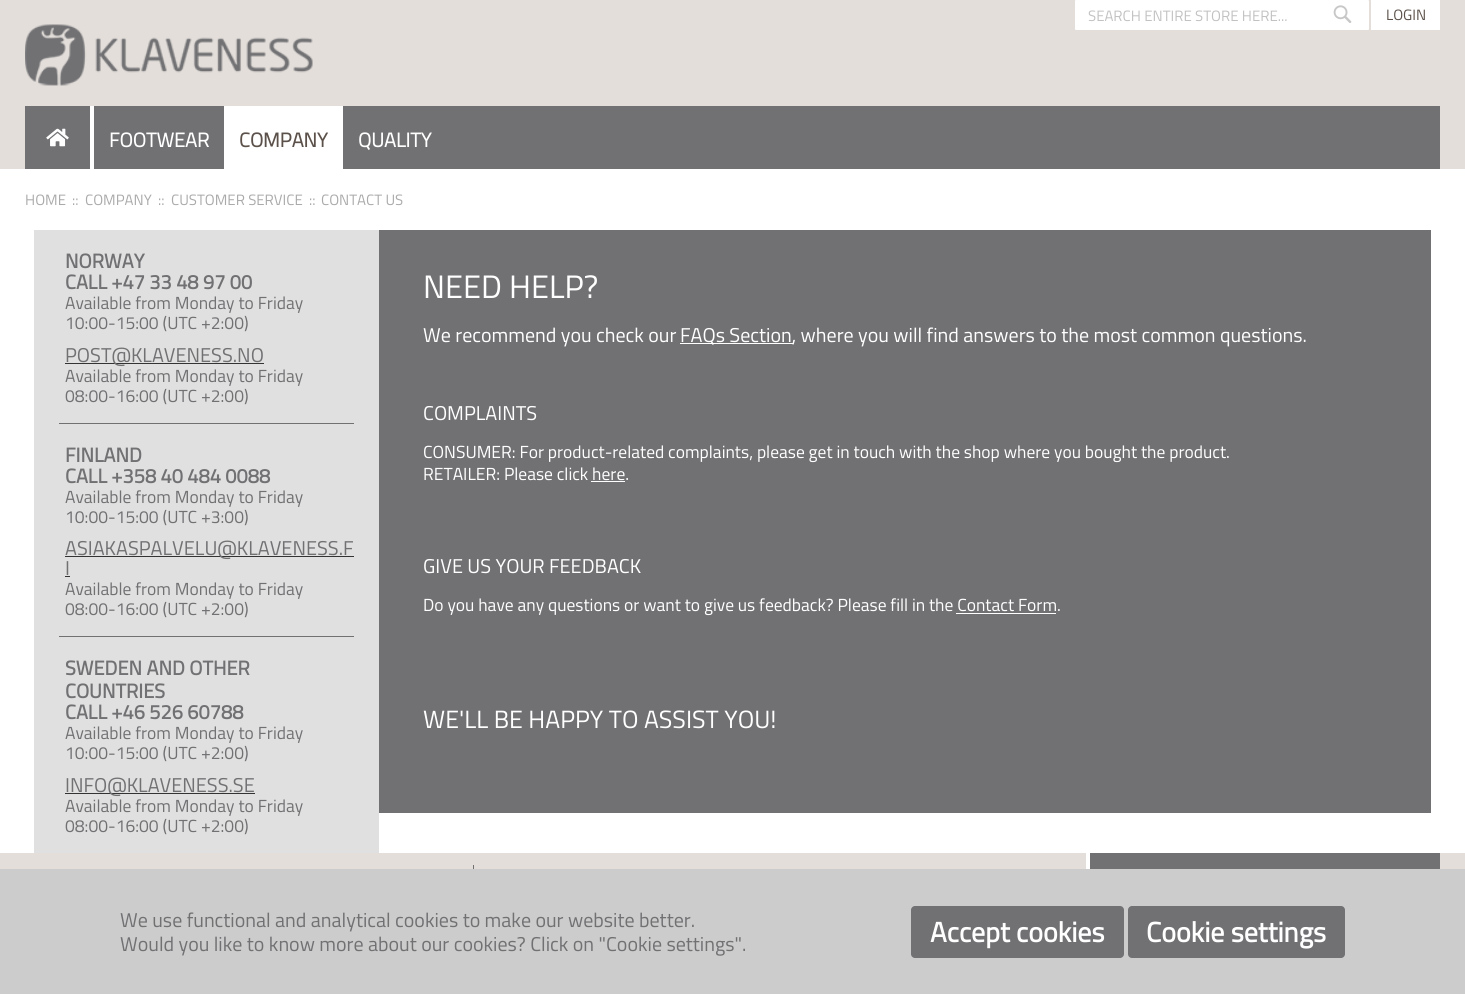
#include <cairo.h>
#include <math.h>
#include <stddef.h>

typedef struct { const char *family; double size; int italic, bold; unsigned color; } style_t;
static cairo_t *ctx;

static void ink(unsigned color) {
    cairo_set_source_rgb(ctx, (color >> 16) / 255.0, (color >> 8 & 255) / 255.0, (color & 255) / 255.0);
}

static void write(double x, double y, const char *s, const style_t *st) {
    cairo_select_font_face(ctx, st->family, st->italic ? CAIRO_FONT_SLANT_ITALIC : CAIRO_FONT_SLANT_NORMAL,
        st->bold ? CAIRO_FONT_WEIGHT_BOLD : CAIRO_FONT_WEIGHT_NORMAL);
    cairo_set_font_size(ctx, st->size);
    ink(st->color);
    cairo_move_to(ctx, x, y);
    cairo_show_text(ctx, s);
}

static void block(double x, double y, double w, double h, unsigned color) {
    ink(color);
    cairo_rectangle(ctx, x, y, w, h);
    cairo_fill(ctx);
}

static void round_path(double x, double y, double w, double h, double r) {
    cairo_new_sub_path(ctx);
    cairo_arc(ctx, x + w - r, y + h - r, r, 0, M_PI / 2);
    cairo_arc(ctx, x + r, y + h - r, r, M_PI / 2, M_PI);
    cairo_arc(ctx, x + r, y + r, r, M_PI, 1.5 * M_PI);
    cairo_arc(ctx, x + w - r, y + r, r, 1.5 * M_PI, 2 * M_PI);
    cairo_close_path(ctx);
}

static void paste(const char *path, double x, double y, double w, double h) {
    cairo_surface_t *image = cairo_image_surface_create_from_png(path);
    cairo_save(ctx);
    cairo_set_source_surface(ctx, image, x, y);
    cairo_rectangle(ctx, x, y, w, h);
    cairo_fill(ctx);
    cairo_restore(ctx);
    cairo_surface_destroy(image);
}

static const style_t s1 = {"Titillium Web", 15, 0, 0, 0xc2c2c2};
static const style_t s2 = {"Titillium Web", 15, 0, 0, 0x5b514a};
static const style_t s3 = {"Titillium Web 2", 20, 0, 1, 0xffffff};
static const style_t s4 = {"Titillium Web 2", 20, 0, 1, 0x5b514a};
static const style_t s5 = {"Titillium Web", 15, 0, 0, 0xaaaaaa};
static const style_t s6 = {"Titillium Web", 20, 0, 1, 0x717174};
static const style_t s7 = {"Titillium Web", 17.5, 0, 0, 0x717174};
static const style_t s8 = {"Titillium Web", 20, 0, 0, 0x717174};
static const style_t s9 = {"Titillium Web", 32.5, 0, 0, 0xffffff};
static const style_t s10 = {"Titillium Web", 20, 0, 0, 0xffffff};
static const style_t s11 = {"Titillium Web", 17.5, 0, 0, 0xffffff};
static const style_t s12 = {"Titillium Web", 25, 0, 0, 0xffffff};
static const style_t s13 = {"Titillium Web", 28, 0, 1, 0xffffff};

int main(void) {
    cairo_surface_t *surface = cairo_image_surface_create(CAIRO_FORMAT_RGB24, 1465, 994);
    ctx = cairo_create(surface);
    cairo_font_options_t *options = cairo_font_options_create();
    cairo_font_options_set_hint_metrics(options, CAIRO_HINT_METRICS_OFF);
    cairo_font_options_set_hint_style(options, CAIRO_HINT_STYLE_NONE);
    cairo_set_font_options(ctx, options);
    cairo_set_miter_limit(ctx, 4);
    ink(0xffffff);
    cairo_paint(ctx);
    block(0, 0, 1465, 169, 0xe3deda);
    ink(0xffffff);
    round_path(1075, 0, 294, 30, 1);
    cairo_fill(ctx);
    write(1088, 21, "SEARCH ENTIRE STORE HERE...", &s1);
    paste("pic1.png", 1333, 5, 19, 18);
    block(1371, 0, 69, 30, 0xffffff);
    write(1386, 20, "LOGIN", &s2);
    paste("pic2.png", 25, 24, 288, 62);
    block(25, 106, 1415, 63, 0x717174);
    block(90, 106, 4, 63, 0xffffff);
    paste("pic3.png", 46, 128, 23, 19);
    write(109, 147, "FOOTWEAR", &s3);
    block(224, 106, 119, 63, 0xffffff);
    write(239, 147, "COMPANY", &s4);
    write(358, 147, "QUALITY", &s3);
    write(25, 205, "HOME", &s5);
    write(72, 205, "::", &s5);
    write(85, 205, "COMPANY", &s5);
    write(158, 205, "::", &s5);
    write(171, 205, "CUSTOMER SERVICE", &s5);
    write(309, 205, "::", &s5);
    write(321, 205, "CONTACT US", &s5);
    block(34, 230, 345, 623, 0xe0e0e0);
    write(65, 268, "NORWAY", &s6);
    write(65, 289, "CALL +47 33 48 97 00", &s6);
    write(65, 309, "Available from Monday to Friday", &s7);
    write(65, 329, "10:00-15:00 (UTC +2:00)", &s7);
    block(65, 363, 199, 1, 0x333333);
    write(65, 362, "POST@KLAVENESS.NO", &s8);
    write(65, 382, "Available from Monday to Friday", &s7);
    write(65, 402, "08:00-16:00 (UTC +2:00)", &s7);
    block(59, 423, 295, 1, 0x717174);
    write(65, 462, "FINLAND", &s6);
    write(65, 483, "CALL +358 40 484 0088", &s6);
    write(65, 503, "Available from Monday to Friday", &s7);
    write(65, 523, "10:00-15:00 (UTC +3:00)", &s7);
    block(65, 556, 289, 1, 0x333333);
    write(65, 555, "ASIAKASPALVELU@KLAVENESS.F", &s8);
    write(65, 575, "I", &s8);
    block(65, 576, 5, 1, 0x333333);
    write(65, 595, "Available from Monday to Friday", &s7);
    write(65, 615, "08:00-16:00 (UTC +2:00)", &s7);
    block(59, 636, 295, 1, 0x717174);
    write(65, 675, "SWEDEN AND OTHER", &s6);
    write(65, 698, "COUNTRIES", &s6);
    write(65, 719, "CALL +46 526 60788", &s6);
    write(65, 739, "Available from Monday to Friday", &s7);
    write(65, 759, "10:00-15:00 (UTC +2:00)", &s7);
    block(65, 793, 190, 1, 0x333333);
    write(65, 792, "INFO@KLAVENESS.SE", &s8);
    write(65, 812, "Available from Monday to Friday", &s7);
    write(65, 832, "08:00-16:00 (UTC +2:00)", &s7);
    block(379, 230, 1052, 583, 0x717174);
    write(423, 298, "NEED HELP?", &s9);
    write(423, 342, "We recommend you check our", &s10);
    block(680, 343, 113, 1, 0xffffff);
    write(680, 342, "FAQs Section, where you will find answers to the most common questions.", &s10);
    write(423, 420, "COMPLAINTS", &s10);
    write(423, 458, "CONSUMER: For product-related complaints, please get in touch with the shop where you bought the product.", &s11);
    write(423, 480, "RETAILER: Please click here.", &s11);
    block(591, 481, 34, 1, 0xffffff);
    write(423, 573, "GIVE US YOUR FEEDBACK", &s10);
    write(423, 611, "Do you have any questions or want to give us feedback? Please fill in the Contact Form.", &s11);
    block(956, 613, 100, 1, 0xffffff);
    write(423, 728, "WE'LL BE HAPPY TO ASSIST YOU!", &s12);
    block(0, 853, 1465, 16, 0xe3deda);
    block(473, 865, 1, 4, 0x717174);
    block(1090, 853, 350, 16, 0x717174);
    block(1086, 853, 4, 16, 0xffffff);
    block(0, 869, 1465, 125, 0xcccccc);
    write(120, 927, "We use functional and analytical cookies to make our website better.", &s8);
    write(120, 951, "Would you like to know more about our cookies? Click on \"Cookie settings\".", &s8);
    round_path(911, 906, 213, 52, 4);
    cairo_fill(ctx);
    write(930, 942, "Accept cookies", &s13);
    ink(0x717174);
    round_path(1128, 906, 217, 52, 4);
    cairo_fill(ctx);
    write(1146, 942, "Cookie settings", &s13);
    cairo_surface_write_to_png(surface, "screenshot.png");
    cairo_font_options_destroy(options);
    cairo_destroy(ctx);
    cairo_surface_destroy(surface);
    return 0;
}
